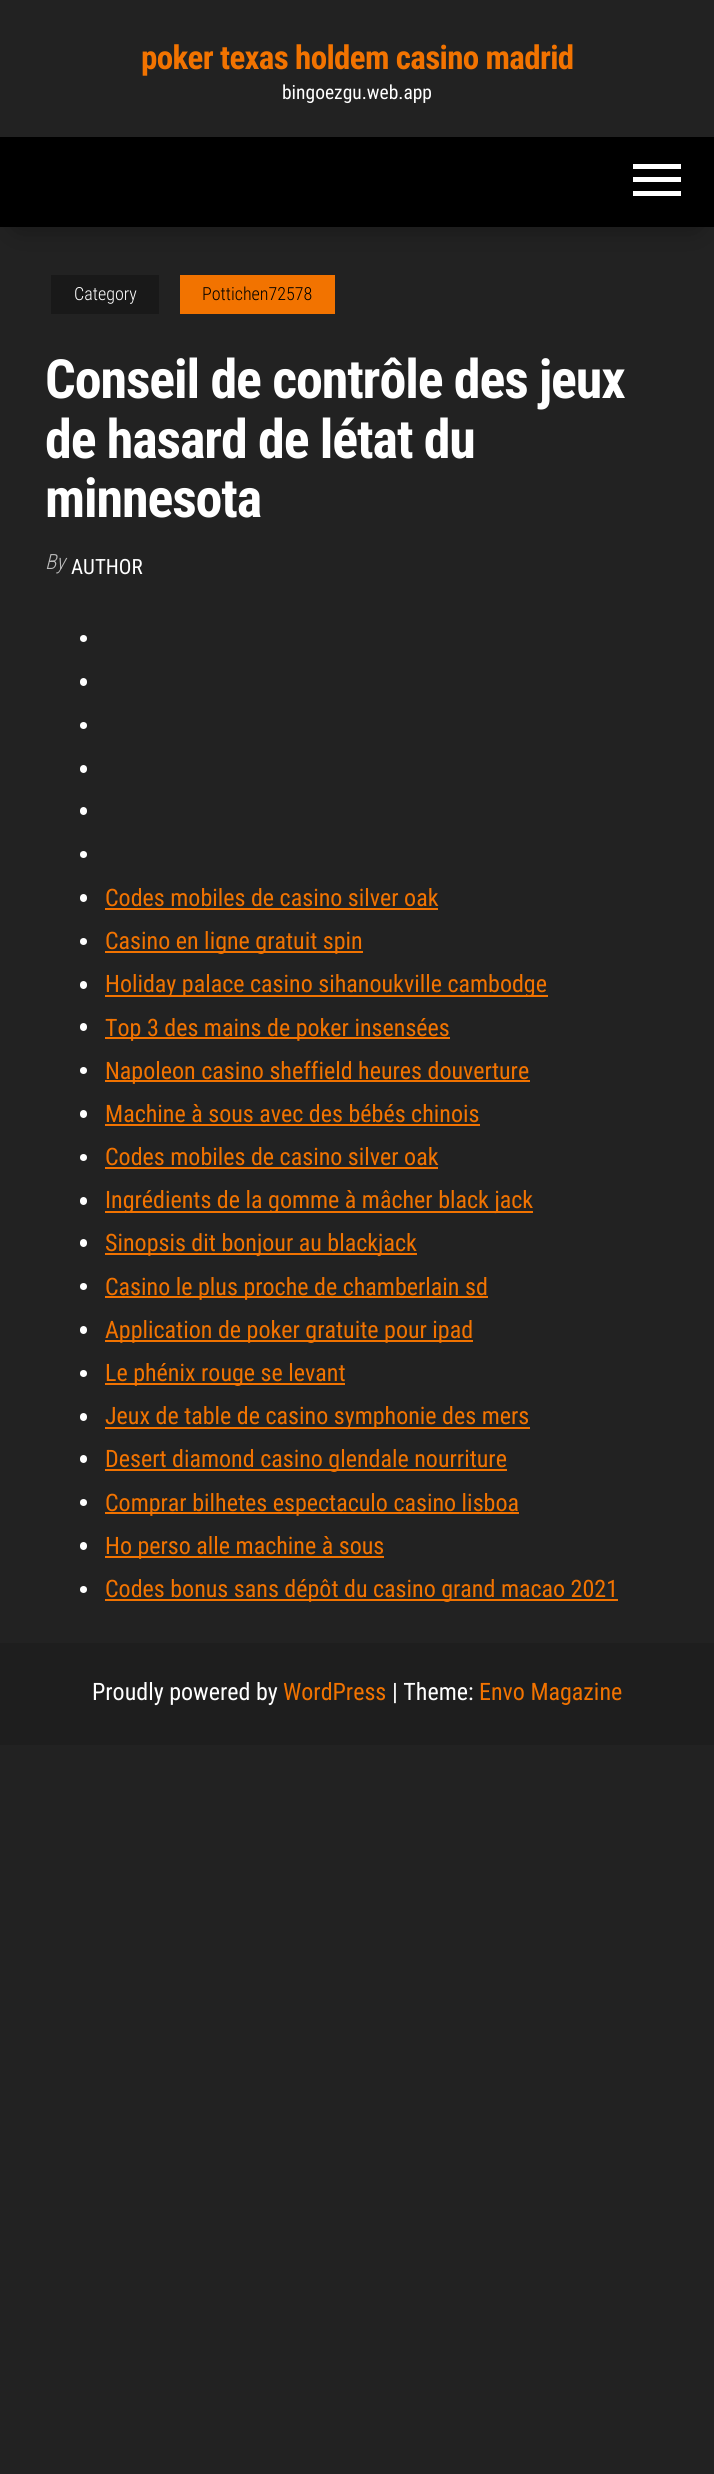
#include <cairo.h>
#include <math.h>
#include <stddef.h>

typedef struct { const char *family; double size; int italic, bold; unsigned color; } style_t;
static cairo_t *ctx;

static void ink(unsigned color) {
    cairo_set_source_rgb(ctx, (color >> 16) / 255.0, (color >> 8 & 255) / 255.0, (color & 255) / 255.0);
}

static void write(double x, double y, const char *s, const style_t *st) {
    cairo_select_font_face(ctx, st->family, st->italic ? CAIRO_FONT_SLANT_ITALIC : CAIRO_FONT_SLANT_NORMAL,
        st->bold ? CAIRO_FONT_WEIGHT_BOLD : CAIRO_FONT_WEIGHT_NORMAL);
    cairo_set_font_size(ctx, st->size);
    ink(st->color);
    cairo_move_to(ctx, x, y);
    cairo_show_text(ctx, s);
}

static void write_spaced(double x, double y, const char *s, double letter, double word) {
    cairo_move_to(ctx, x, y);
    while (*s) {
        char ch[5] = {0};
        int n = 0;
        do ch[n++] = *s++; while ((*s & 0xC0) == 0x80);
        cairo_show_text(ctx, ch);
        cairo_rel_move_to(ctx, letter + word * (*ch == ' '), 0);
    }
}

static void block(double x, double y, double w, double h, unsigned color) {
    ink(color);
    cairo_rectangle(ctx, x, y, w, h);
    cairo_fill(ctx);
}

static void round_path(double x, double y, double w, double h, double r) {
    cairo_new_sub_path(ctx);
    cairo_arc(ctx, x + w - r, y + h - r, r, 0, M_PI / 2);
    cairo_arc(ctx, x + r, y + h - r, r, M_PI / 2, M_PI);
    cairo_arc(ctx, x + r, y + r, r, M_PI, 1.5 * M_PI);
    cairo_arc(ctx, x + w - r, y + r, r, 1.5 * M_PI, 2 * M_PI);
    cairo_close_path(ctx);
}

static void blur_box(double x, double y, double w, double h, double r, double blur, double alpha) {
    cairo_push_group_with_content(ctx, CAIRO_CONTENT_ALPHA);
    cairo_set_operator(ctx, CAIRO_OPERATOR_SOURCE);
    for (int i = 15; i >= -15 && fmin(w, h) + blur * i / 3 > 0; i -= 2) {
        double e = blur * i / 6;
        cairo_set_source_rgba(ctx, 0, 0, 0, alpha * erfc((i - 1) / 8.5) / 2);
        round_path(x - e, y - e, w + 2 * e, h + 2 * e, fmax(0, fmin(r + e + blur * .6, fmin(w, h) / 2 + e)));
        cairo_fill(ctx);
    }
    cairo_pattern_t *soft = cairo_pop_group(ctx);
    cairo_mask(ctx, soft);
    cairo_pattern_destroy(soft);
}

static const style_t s1 = {"Roboto Condensed", 19.5, 0, 0, 0xffffff};
static const style_t s2 = {"Roboto Condensed Light", 18, 0, 0, 0xffffff};
static const style_t s3 = {"Roboto Condensed Light", 18, 0, 0, 0x000000};
static const style_t s4 = {"Roboto Condensed Light", 21, 1, 0, 0xbdbdbd};
static const style_t s5 = {"Roboto Condensed", 21, 0, 0, 0xffffff};
static const style_t s6 = {"Roboto Condensed", 24, 0, 0, 0xf27300};
static const style_t s7 = {"Roboto Condensed", 24, 0, 0, 0xffffff};

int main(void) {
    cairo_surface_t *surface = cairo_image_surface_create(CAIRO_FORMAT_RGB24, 714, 2474);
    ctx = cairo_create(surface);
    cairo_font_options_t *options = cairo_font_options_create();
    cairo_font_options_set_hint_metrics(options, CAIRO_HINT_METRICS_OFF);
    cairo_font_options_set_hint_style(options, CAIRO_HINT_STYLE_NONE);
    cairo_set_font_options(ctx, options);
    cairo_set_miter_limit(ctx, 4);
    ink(0x222222);
    cairo_paint(ctx);
    cairo_select_font_face(ctx, "Roboto Condensed", CAIRO_FONT_SLANT_NORMAL, CAIRO_FONT_WEIGHT_BOLD);
    cairo_set_font_size(ctx, 33);
    ink(0xf27300);
    write_spaced(141, 69, "poker texas holdem casino madrid", -0.65, 0);
    write(282, 99, "bingoezgu.web.app", &s1);
    ink(0x000000);
    blur_box(18, 170, 678, 54, 0, 15, 0.42);
    block(0, 137, 714, 90, 0x000000);
    block(633, 164, 48, 5, 0xffffff);
    block(633, 177, 48, 5, 0xffffff);
    block(633, 191, 48, 5, 0xffffff);
    block(51, 275, 108, 39, 0x191919);
    write(74, 300, "Category", &s2);
    block(180, 275, 155, 39, 0xf27300);
    write(202, 300, "Pottichen72578", &s3);
    cairo_select_font_face(ctx, "Roboto Condensed", CAIRO_FONT_SLANT_NORMAL, CAIRO_FONT_WEIGHT_BOLD);
    cairo_set_font_size(ctx, 54);
    ink(0xffffff);
    write_spaced(45, 398, "Conseil de contrôle des jeux", -1.1, 0);
    write_spaced(45, 458, "de hasard de létat du", -1.1, 0);
    write_spaced(45, 517, "minnesota", -1.1, 0);
    write(45, 569, "By", &s4);
    write(71, 574, "AUTHOR", &s5);
    cairo_new_path(ctx);
    cairo_arc(ctx, 83.5, 638.5, 3.5, 0, 2 * M_PI);
    cairo_fill(ctx);
    round_path(80, 678, 7, 8, 3.5);
    cairo_fill(ctx);
    cairo_arc(ctx, 83.5, 725.5, 3.5, 0, 2 * M_PI);
    cairo_fill(ctx);
    round_path(80, 765, 7, 8, 3.5);
    cairo_fill(ctx);
    round_path(80, 807, 7, 8, 3.5);
    cairo_fill(ctx);
    cairo_arc(ctx, 83.5, 854.5, 3.5, 0, 2 * M_PI);
    cairo_fill(ctx);
    round_path(80, 894, 7, 8, 3.5);
    cairo_fill(ctx);
    write(105, 906, "Codes mobiles de casino silver oak", &s6);
    block(105, 908, 333, 2, 0xf27300);
    ink(0xffffff);
    cairo_new_path(ctx);
    cairo_arc(ctx, 83.5, 941.5, 3.5, 0, 2 * M_PI);
    cairo_fill(ctx);
    block(105, 951, 258, 2, 0xf27300);
    write(105, 949, "Casino en ligne gratuit spin", &s6);
    ink(0xffffff);
    round_path(80, 981, 7, 8, 3.5);
    cairo_fill(ctx);
    block(105, 995, 443, 2, 0xf27300);
    write(105, 992, "Holiday palace casino sihanoukville cambodge", &s6);
    ink(0xffffff);
    round_path(80, 1023, 7, 8, 3.5);
    cairo_fill(ctx);
    block(105, 1037, 345, 2, 0xf27300);
    write(105, 1036, "Top 3 des mains de poker insensées", &s6);
    ink(0xffffff);
    cairo_new_path(ctx);
    cairo_arc(ctx, 83.5, 1070.5, 3.5, 0, 2 * M_PI);
    cairo_fill(ctx);
    block(105, 1080, 425, 2, 0xf27300);
    write(105, 1079, "Napoleon casino sheffield heures douverture", &s6);
    ink(0xffffff);
    round_path(80, 1110, 7, 8, 3.5);
    cairo_fill(ctx);
    write(105, 1122, "Machine à sous avec des bébés chinois", &s6);
    block(105, 1124, 375, 2, 0xf27300);
    ink(0xffffff);
    cairo_new_path(ctx);
    cairo_arc(ctx, 83.5, 1157.5, 3.5, 0, 2 * M_PI);
    cairo_fill(ctx);
    write(105, 1165, "Codes mobiles de casino silver oak", &s6);
    block(105, 1167, 333, 2, 0xf27300);
    ink(0xffffff);
    round_path(80, 1197, 7, 8, 3.5);
    cairo_fill(ctx);
    block(105, 1211, 428, 2, 0xf27300);
    write(105, 1208, "Ingrédients de la gomme à mâcher black jack", &s6);
    ink(0xffffff);
    round_path(80, 1239, 7, 8, 3.5);
    cairo_fill(ctx);
    block(105, 1253, 312, 2, 0xf27300);
    write(105, 1251, "Sinopsis dit bonjour au blackjack", &s6);
    ink(0xffffff);
    cairo_new_path(ctx);
    cairo_arc(ctx, 83.5, 1286.5, 3.5, 0, 2 * M_PI);
    cairo_fill(ctx);
    block(105, 1296, 383, 2, 0xf27300);
    write(105, 1295, "Casino le plus proche de chamberlain sd", &s6);
    ink(0xffffff);
    round_path(80, 1326, 7, 8, 3.5);
    cairo_fill(ctx);
    block(105, 1340, 368, 2, 0xf27300);
    write(105, 1338, "Application de poker gratuite pour ipad", &s6);
    ink(0xffffff);
    cairo_new_path(ctx);
    cairo_arc(ctx, 83.5, 1373.5, 3.5, 0, 2 * M_PI);
    cairo_fill(ctx);
    block(105, 1383, 240, 2, 0xf27300);
    write(105, 1381, "Le phénix rouge se levant", &s6);
    ink(0xffffff);
    round_path(80, 1413, 7, 8, 3.5);
    cairo_fill(ctx);
    block(105, 1427, 425, 2, 0xf27300);
    write(105, 1424, "Jeux de table de casino symphonie des mers", &s6);
    ink(0xffffff);
    round_path(80, 1455, 7, 8, 3.5);
    cairo_fill(ctx);
    block(105, 1469, 402, 2, 0xf27300);
    write(105, 1467, "Desert diamond casino glendale nourriture", &s6);
    ink(0xffffff);
    cairo_new_path(ctx);
    cairo_arc(ctx, 83.5, 1502.5, 3.5, 0, 2 * M_PI);
    cairo_fill(ctx);
    block(105, 1512, 414, 2, 0xf27300);
    write(105, 1511, "Comprar bilhetes espectaculo casino lisboa", &s6);
    ink(0xffffff);
    round_path(80, 1542, 7, 8, 3.5);
    cairo_fill(ctx);
    block(105, 1556, 279, 2, 0xf27300);
    write(105, 1554, "Ho perso alle machine à sous", &s6);
    ink(0xffffff);
    cairo_new_path(ctx);
    cairo_arc(ctx, 83.5, 1589.5, 3.5, 0, 2 * M_PI);
    cairo_fill(ctx);
    block(105, 1599, 513, 2, 0xf27300);
    write(105, 1597, "Codes bonus sans dépôt du casino grand macao 2021", &s6);
    block(0, 1643, 714, 102, 0x1e1e1e);
    write(92, 1700, "Proudly powered by", &s7);
    write(283, 1700, "WordPress", &s6);
    write(392, 1700, "| Theme:", &s7);
    write(479, 1700, "Envo Magazine", &s6);
    cairo_surface_write_to_png(surface, "screenshot.png");
    cairo_font_options_destroy(options);
    cairo_destroy(ctx);
    cairo_surface_destroy(surface);
    return 0;
}
